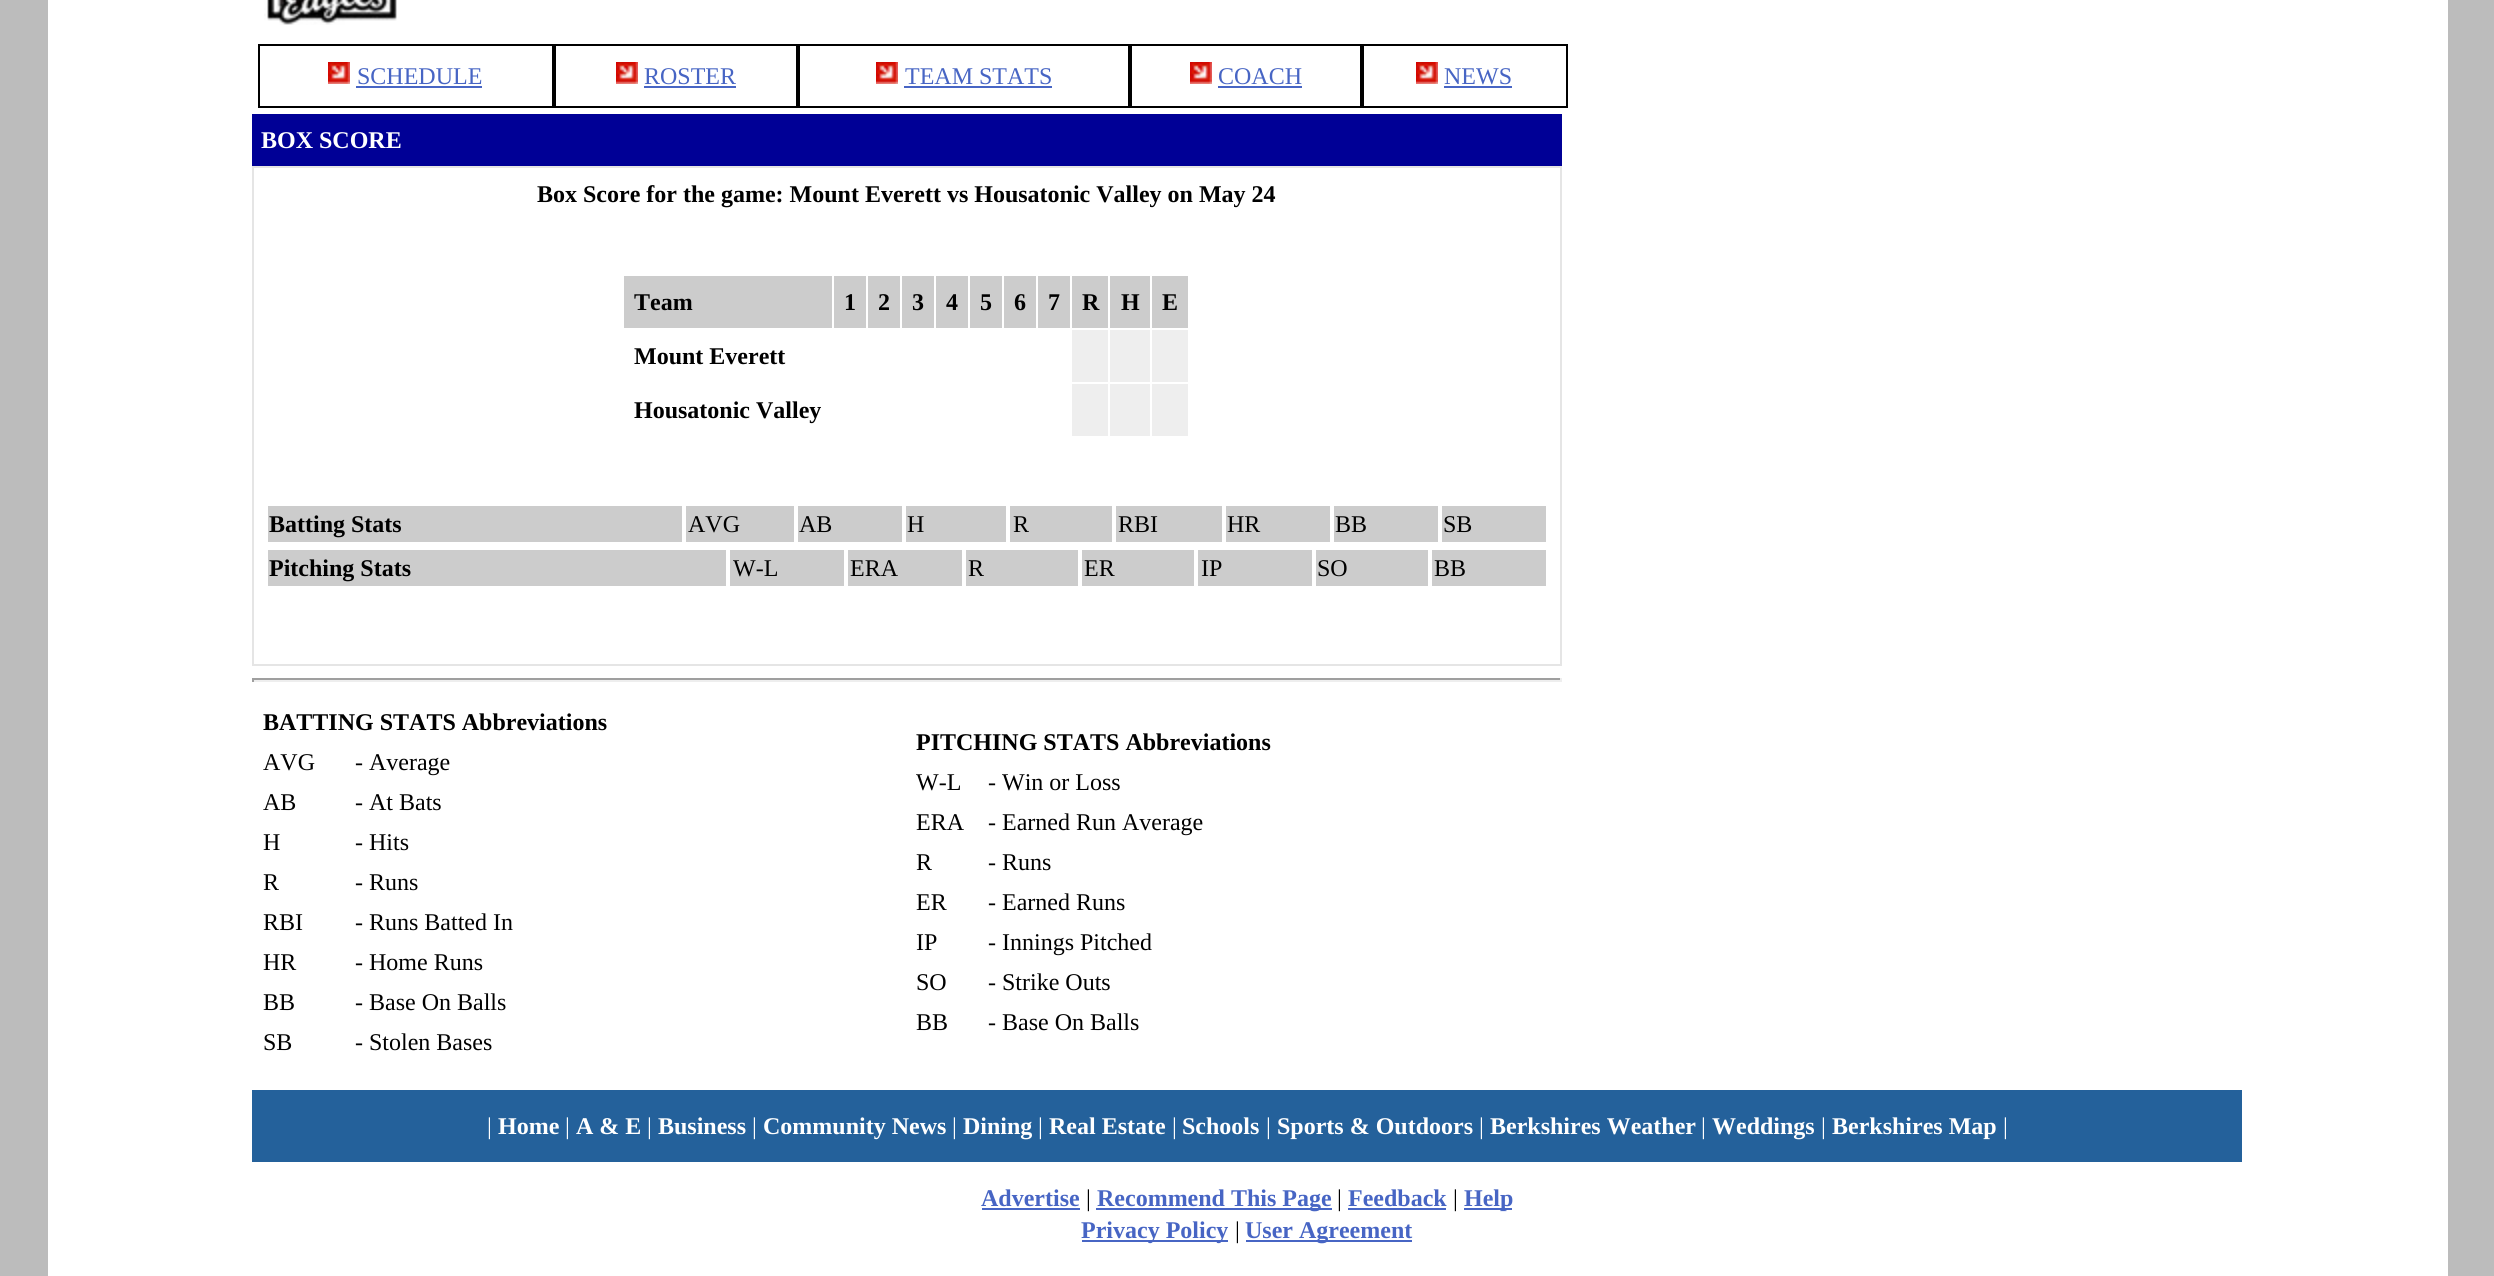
#include <cairo.h>
#include <math.h>
#include <stddef.h>

typedef struct { const char *family; double size; int italic, bold; unsigned color; } style_t;
static cairo_t *ctx;

static void ink(unsigned color) {
    cairo_set_source_rgb(ctx, (color >> 16) / 255.0, (color >> 8 & 255) / 255.0, (color & 255) / 255.0);
}

static void write(double x, double y, const char *s, const style_t *st) {
    cairo_select_font_face(ctx, st->family, st->italic ? CAIRO_FONT_SLANT_ITALIC : CAIRO_FONT_SLANT_NORMAL,
        st->bold ? CAIRO_FONT_WEIGHT_BOLD : CAIRO_FONT_WEIGHT_NORMAL);
    cairo_set_font_size(ctx, st->size);
    ink(st->color);
    cairo_move_to(ctx, x, y);
    cairo_show_text(ctx, s);
}

static void block(double x, double y, double w, double h, unsigned color) {
    ink(color);
    cairo_rectangle(ctx, x, y, w, h);
    cairo_fill(ctx);
}

static void paste(const char *path, double x, double y, double w, double h) {
    cairo_surface_t *image = cairo_image_surface_create_from_png(path);
    cairo_save(ctx);
    cairo_set_source_surface(ctx, image, x, y);
    cairo_rectangle(ctx, x, y, w, h);
    cairo_fill(ctx);
    cairo_restore(ctx);
    cairo_surface_destroy(image);
}

static const style_t s1 = {"Liberation Serif", 24, 0, 0, 0x4765c4};
static const style_t s2 = {"Liberation Serif", 24, 0, 1, 0xffffff};
static const style_t s3 = {"Liberation Serif", 24, 0, 1, 0x000000};
static const style_t s4 = {"Liberation Serif", 24, 0, 0, 0x000000};
static const style_t s5 = {"Liberation Serif", 24, 0, 0, 0xffffff};
static const style_t s6 = {"Liberation Serif", 24, 0, 1, 0x4765c4};

int main(void) {
    cairo_surface_t *surface = cairo_image_surface_create(CAIRO_FORMAT_RGB24, 2494, 1276);
    ctx = cairo_create(surface);
    cairo_font_options_t *options = cairo_font_options_create();
    cairo_font_options_set_hint_metrics(options, CAIRO_HINT_METRICS_OFF);
    cairo_font_options_set_hint_style(options, CAIRO_HINT_STYLE_NONE);
    cairo_set_font_options(ctx, options);
    cairo_set_miter_limit(ctx, 4);
    ink(0xbcbcbc);
    cairo_paint(ctx);
    block(48, 0, 2400, 1276, 0xffffff);
    paste("pic1.png", 264, 0, 133, 25);
    cairo_rectangle(ctx, 259, 45, 294, 62);
    ink(0x000000);
    cairo_stroke(ctx);
    paste("pic2.png", 328, 62, 22, 22);
    write(357, 84, "SCHEDULE", &s1);
    block(356, 86, 126, 2, 0x4765c4);
    cairo_rectangle(ctx, 555, 45, 242, 62);
    ink(0x000000);
    cairo_stroke(ctx);
    paste("pic2.png", 616, 62, 22, 22);
    write(644, 84, "ROSTER", &s1);
    block(644, 86, 92, 2, 0x4765c4);
    cairo_rectangle(ctx, 799, 45, 330, 62);
    ink(0x000000);
    cairo_stroke(ctx);
    paste("pic2.png", 876, 62, 22, 22);
    write(905, 84, "TEAM STATS", &s1);
    block(904, 86, 148, 2, 0x4765c4);
    cairo_rectangle(ctx, 1131, 45, 230, 62);
    ink(0x000000);
    cairo_stroke(ctx);
    paste("pic2.png", 1190, 62, 22, 22);
    write(1218, 84, "COACH", &s1);
    block(1218, 86, 84, 2, 0x4765c4);
    cairo_rectangle(ctx, 1363, 45, 204, 62);
    ink(0x000000);
    cairo_stroke(ctx);
    paste("pic2.png", 1416, 62, 22, 22);
    write(1444, 84, "NEWS", &s1);
    block(1444, 86, 68, 2, 0x4765c4);
    block(252, 114, 1310, 52, 0x000096);
    write(261, 148, "BOX SCORE", &s2);
    cairo_rectangle(ctx, 253, 167, 1308, 498);
    ink(0xe5e5e5);
    cairo_stroke(ctx);
    write(537, 202, "Box Score for the game: Mount Everett vs Housatonic Valley on May 24", &s3);
    block(624, 276, 208, 52, 0xcccccc);
    write(634, 310, "Team", &s3);
    block(834, 276, 32, 52, 0xcccccc);
    write(844, 310, "1", &s3);
    block(868, 276, 32, 52, 0xcccccc);
    write(878, 310, "2", &s3);
    block(902, 276, 32, 52, 0xcccccc);
    write(912, 310, "3", &s3);
    block(936, 276, 32, 52, 0xcccccc);
    write(946, 310, "4", &s3);
    block(970, 276, 32, 52, 0xcccccc);
    write(980, 310, "5", &s3);
    block(1004, 276, 32, 52, 0xcccccc);
    write(1014, 310, "6", &s3);
    block(1038, 276, 32, 52, 0xcccccc);
    write(1048, 310, "7", &s3);
    block(1072, 276, 36, 52, 0xcccccc);
    write(1082, 310, "R", &s3);
    block(1110, 276, 40, 52, 0xcccccc);
    write(1121, 310, "H", &s3);
    block(1152, 276, 36, 52, 0xcccccc);
    write(1162, 310, "E", &s3);
    write(634, 364, "Mount Everett", &s3);
    block(1072, 330, 36, 52, 0xeeeeee);
    block(1110, 330, 40, 52, 0xeeeeee);
    block(1152, 330, 36, 52, 0xeeeeee);
    write(634, 418, "Housatonic Valley", &s3);
    block(1072, 384, 36, 52, 0xeeeeee);
    block(1110, 384, 40, 52, 0xeeeeee);
    block(1152, 384, 36, 52, 0xeeeeee);
    block(268, 506, 414, 36, 0xcccccc);
    write(269, 532, "Batting Stats", &s3);
    block(686, 506, 108, 36, 0xcccccc);
    write(688, 532, "AVG", &s4);
    block(798, 506, 104, 36, 0xcccccc);
    write(799, 532, "AB", &s4);
    block(906, 506, 100, 36, 0xcccccc);
    write(907, 532, "H", &s4);
    block(1010, 506, 102, 36, 0xcccccc);
    write(1013, 532, "R", &s4);
    block(1116, 506, 106, 36, 0xcccccc);
    write(1118, 532, "RBI", &s4);
    block(1226, 506, 104, 36, 0xcccccc);
    write(1227, 532, "HR", &s4);
    block(1334, 506, 104, 36, 0xcccccc);
    write(1335, 532, "BB", &s4);
    block(1442, 506, 104, 36, 0xcccccc);
    write(1443, 532, "SB", &s4);
    block(268, 550, 458, 36, 0xcccccc);
    write(269, 576, "Pitching Stats", &s3);
    block(730, 550, 114, 36, 0xcccccc);
    write(733, 576, "W-L", &s4);
    block(848, 550, 114, 36, 0xcccccc);
    write(850, 576, "ERA", &s4);
    block(966, 550, 112, 36, 0xcccccc);
    write(968, 576, "R", &s4);
    block(1082, 550, 112, 36, 0xcccccc);
    write(1084, 576, "ER", &s4);
    block(1198, 550, 114, 36, 0xcccccc);
    write(1201, 576, "IP", &s4);
    block(1316, 550, 112, 36, 0xcccccc);
    write(1317, 576, "SO", &s4);
    block(1432, 550, 114, 36, 0xcccccc);
    write(1434, 576, "BB", &s4);
    block(252, 678, 1310, 2, 0x9f9f9f);
    block(1560, 678, 2, 4, 0xeeeeee);
    block(252, 680, 1310, 2, 0xeeeeee);
    block(252, 678, 2, 4, 0x9f9f9f);
    write(263, 730, "BATTING STATS Abbreviations", &s3);
    write(263, 770, "AVG", &s4);
    write(355, 770, "- Average", &s4);
    write(263, 810, "AB", &s4);
    write(355, 810, "- At Bats", &s4);
    write(263, 850, "H", &s4);
    write(355, 850, "- Hits", &s4);
    write(263, 890, "R", &s4);
    write(355, 890, "- Runs", &s4);
    write(263, 930, "RBI", &s4);
    write(355, 930, "- Runs Batted In", &s4);
    write(263, 970, "HR", &s4);
    write(355, 970, "- Home Runs", &s4);
    write(263, 1010, "BB", &s4);
    write(355, 1010, "- Base On Balls", &s4);
    write(263, 1050, "SB", &s4);
    write(355, 1050, "- Stolen Bases", &s4);
    write(916, 750, "PITCHING STATS Abbreviations", &s3);
    write(916, 790, "W-L", &s4);
    write(988, 790, "- Win or Loss", &s4);
    write(916, 830, "ERA", &s4);
    write(988, 830, "- Earned Run Average", &s4);
    write(916, 870, "R", &s4);
    write(988, 870, "- Runs", &s4);
    write(916, 910, "ER", &s4);
    write(988, 910, "- Earned Runs", &s4);
    write(916, 950, "IP", &s4);
    write(988, 950, "- Innings Pitched", &s4);
    write(916, 990, "SO", &s4);
    write(988, 990, "- Strike Outs", &s4);
    write(916, 1030, "BB", &s4);
    write(988, 1030, "- Base On Balls", &s4);
    block(252, 1090, 1990, 72, 0x24619b);
    write(487, 1134, "|", &s5);
    write(498, 1134, "Home", &s2);
    write(565, 1134, "|", &s5);
    write(576, 1134, "A & E", &s2);
    write(647, 1134, "|", &s5);
    write(658, 1134, "Business", &s2);
    write(752, 1134, "|", &s5);
    write(763, 1134, "Community News", &s2);
    write(952, 1134, "|", &s5);
    write(963, 1134, "Dining", &s2);
    write(1038, 1134, "|", &s5);
    write(1049, 1134, "Real Estate", &s2);
    write(1172, 1134, "|", &s5);
    write(1182, 1134, "Schools", &s2);
    write(1266, 1134, "|", &s5);
    write(1277, 1134, "Sports & Outdoors", &s2);
    write(1479, 1134, "|", &s5);
    write(1490, 1134, "Berkshires Weather", &s2);
    write(1701, 1134, "|", &s5);
    write(1712, 1134, "Weddings", &s2);
    write(1821, 1134, "|", &s5);
    write(1832, 1134, "Berkshires Map", &s2);
    write(2003, 1134, "|", &s5);
    write(981, 1206, "Advertise", &s6);
    block(982, 1208, 98, 2, 0x4765c4);
    write(1086, 1206, "|", &s4);
    block(1096, 1208, 236, 2, 0x4765c4);
    write(1097, 1206, "Recommend This Page", &s6);
    write(1337, 1206, "|", &s4);
    write(1348, 1206, "Feedback", &s6);
    block(1348, 1208, 98, 2, 0x4765c4);
    write(1453, 1206, "|", &s4);
    block(1464, 1208, 48, 2, 0x4765c4);
    write(1464, 1206, "Help", &s6);
    block(1082, 1240, 146, 2, 0x4765c4);
    write(1081, 1238, "Privacy Policy", &s6);
    write(1235, 1238, "|", &s4);
    block(1246, 1240, 166, 2, 0x4765c4);
    write(1245, 1238, "User Agreement", &s6);
    cairo_surface_write_to_png(surface, "screenshot.png");
    cairo_font_options_destroy(options);
    cairo_destroy(ctx);
    cairo_surface_destroy(surface);
    return 0;
}
